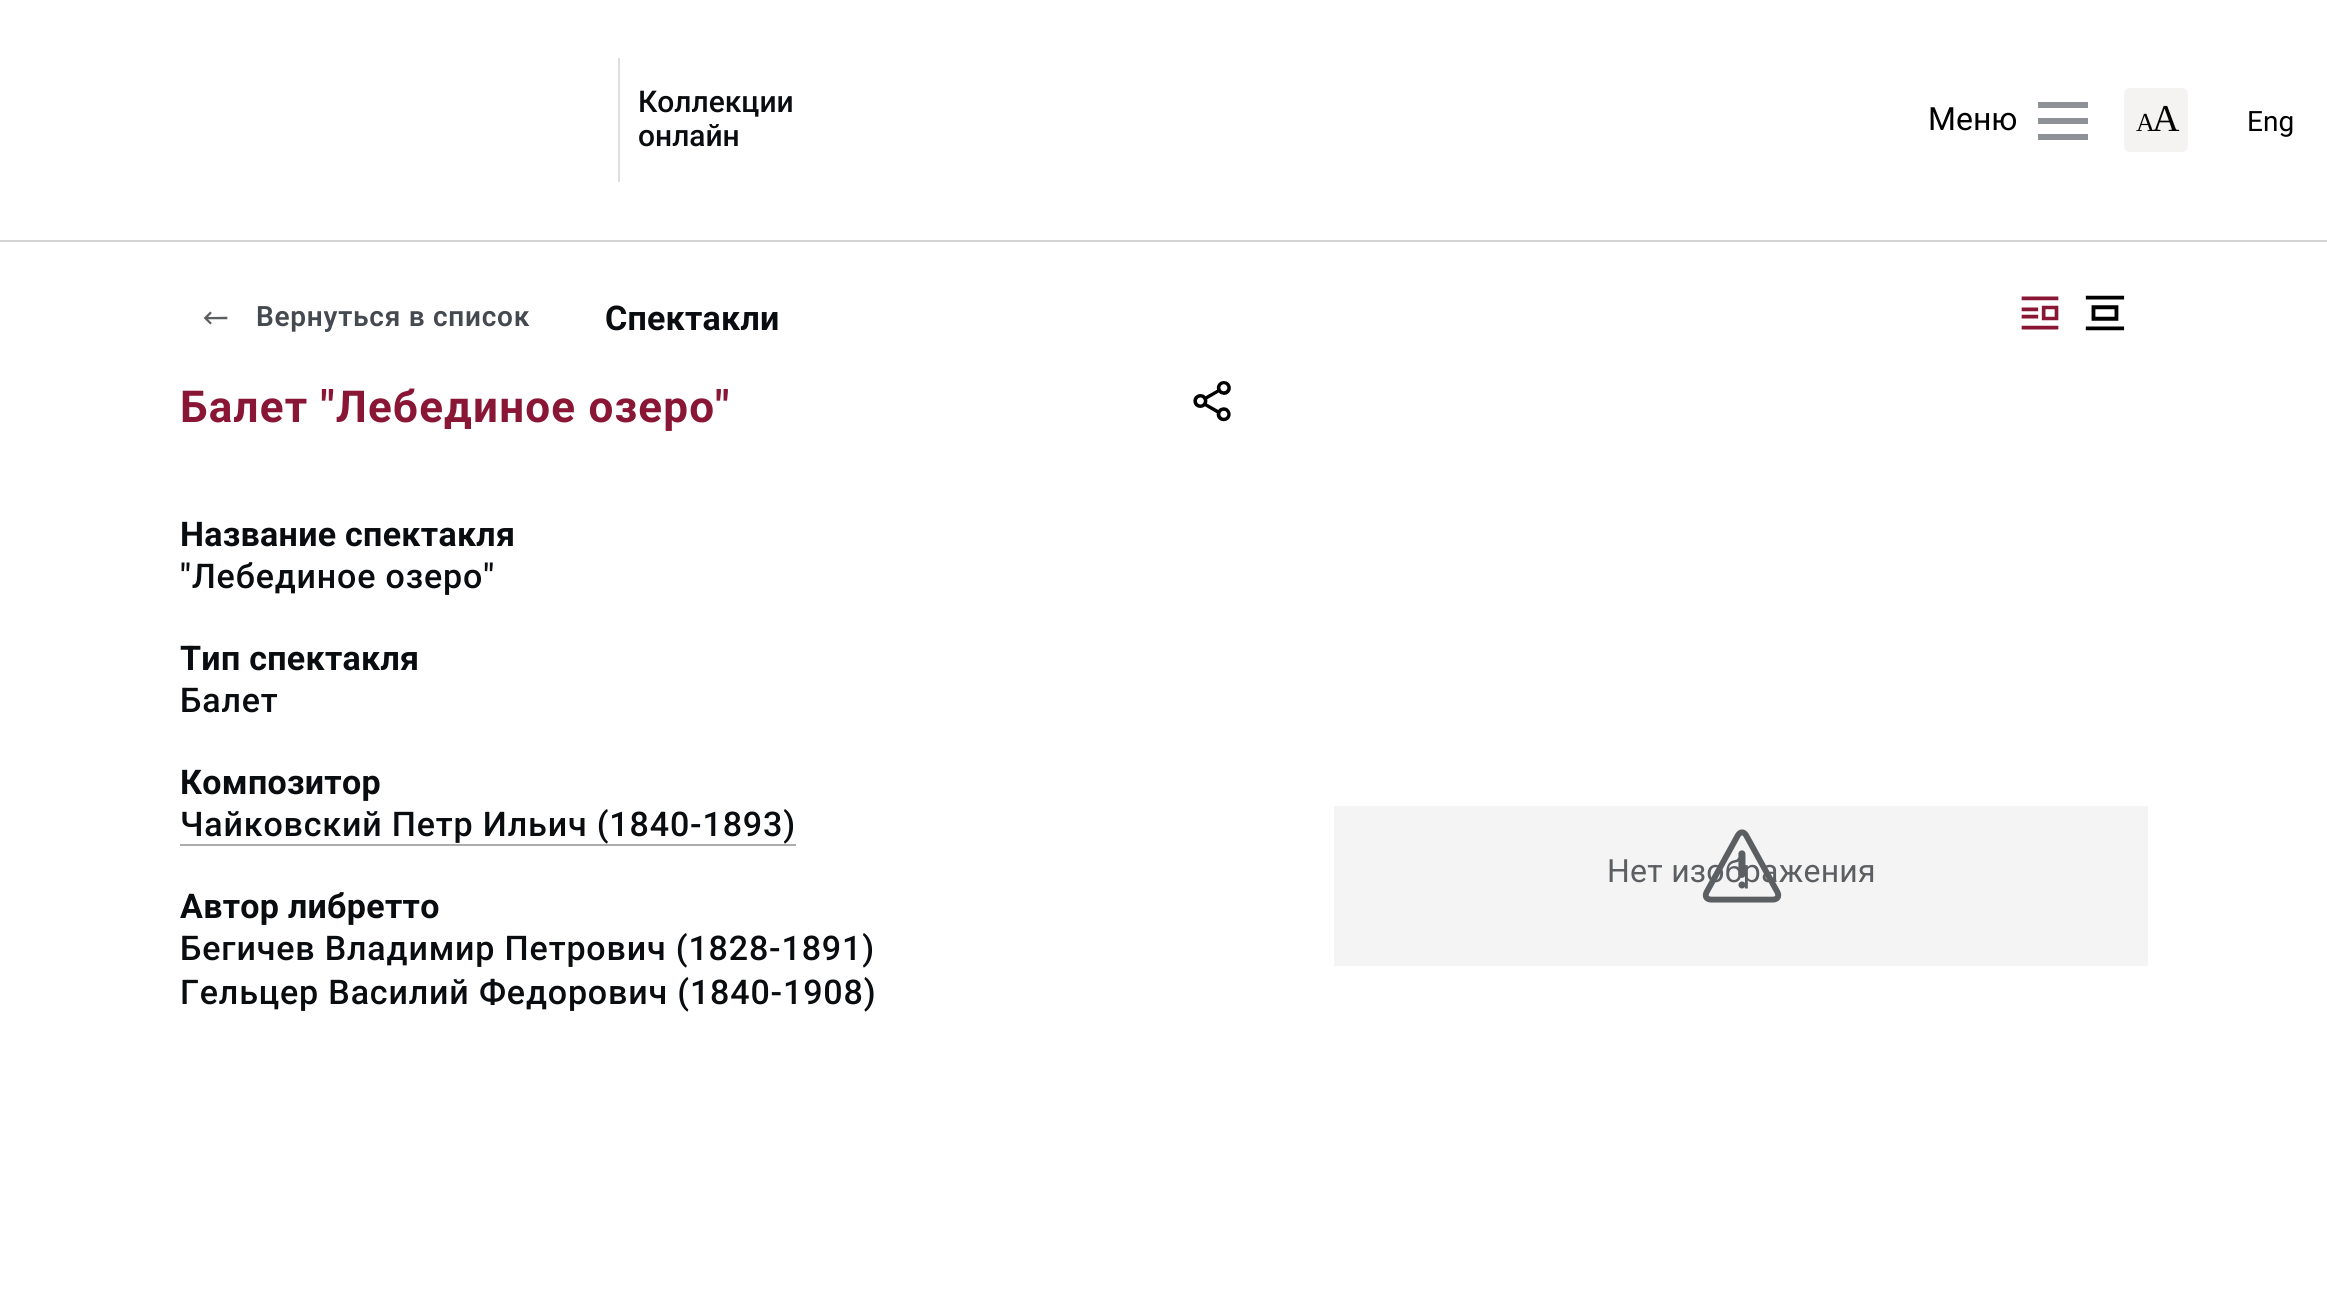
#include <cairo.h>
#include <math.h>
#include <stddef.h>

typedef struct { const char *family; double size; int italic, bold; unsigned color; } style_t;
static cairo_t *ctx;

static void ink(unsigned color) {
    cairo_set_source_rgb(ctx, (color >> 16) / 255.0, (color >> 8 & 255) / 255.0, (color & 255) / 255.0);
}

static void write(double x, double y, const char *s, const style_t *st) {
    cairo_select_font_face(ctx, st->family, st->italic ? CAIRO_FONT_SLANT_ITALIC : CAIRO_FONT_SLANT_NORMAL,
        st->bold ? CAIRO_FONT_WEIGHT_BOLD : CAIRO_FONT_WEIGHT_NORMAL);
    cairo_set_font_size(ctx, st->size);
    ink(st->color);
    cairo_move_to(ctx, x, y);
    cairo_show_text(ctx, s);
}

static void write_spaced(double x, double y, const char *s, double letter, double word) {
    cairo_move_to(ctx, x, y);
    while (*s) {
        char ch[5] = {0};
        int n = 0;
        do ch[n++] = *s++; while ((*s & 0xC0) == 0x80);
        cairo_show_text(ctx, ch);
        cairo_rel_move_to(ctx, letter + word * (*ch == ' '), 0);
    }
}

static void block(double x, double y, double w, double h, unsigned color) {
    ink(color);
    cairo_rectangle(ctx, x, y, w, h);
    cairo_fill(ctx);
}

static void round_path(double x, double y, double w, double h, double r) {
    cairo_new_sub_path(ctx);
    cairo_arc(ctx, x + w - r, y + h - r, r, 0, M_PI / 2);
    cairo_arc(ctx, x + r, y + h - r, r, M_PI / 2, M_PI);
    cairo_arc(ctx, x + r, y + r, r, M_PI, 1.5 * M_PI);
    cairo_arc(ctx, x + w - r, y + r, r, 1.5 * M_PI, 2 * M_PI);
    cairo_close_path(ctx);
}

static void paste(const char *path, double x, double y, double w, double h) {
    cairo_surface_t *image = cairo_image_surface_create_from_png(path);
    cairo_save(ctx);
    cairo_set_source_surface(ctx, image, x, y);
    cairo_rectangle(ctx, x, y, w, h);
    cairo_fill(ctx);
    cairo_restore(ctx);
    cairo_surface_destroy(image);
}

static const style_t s1 = {"Roboto Medium", 30, 0, 0, 0x0a0d10};
static const style_t s2 = {"Roboto", 32, 0, 0, 0x000000};
static const style_t s3 = {"Liberation Serif", 26, 0, 0, 0x000000};
static const style_t s4 = {"Liberation Serif", 38, 0, 0, 0x000000};
static const style_t s5 = {"Roboto", 28, 0, 0, 0x000000};

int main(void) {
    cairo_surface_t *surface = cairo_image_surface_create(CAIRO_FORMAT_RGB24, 2327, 1293);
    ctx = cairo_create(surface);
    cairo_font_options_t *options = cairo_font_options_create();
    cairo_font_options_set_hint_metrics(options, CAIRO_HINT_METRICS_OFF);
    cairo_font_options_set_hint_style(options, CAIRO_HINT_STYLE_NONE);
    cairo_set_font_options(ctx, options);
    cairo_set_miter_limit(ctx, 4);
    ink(0xffffff);
    cairo_paint(ctx);
    block(0, 240, 2327, 2, 0xd3d3d3);
    block(618, 58, 2, 124, 0xdedede);
    write(638, 112, "Коллекции", &s1);
    write(638, 146, "онлайн", &s1);
    block(2038, 102, 50, 6, 0x8e9195);
    write(1928, 130, "Меню", &s2);
    block(2038, 118, 50, 6, 0x8e9195);
    block(2038, 134, 50, 6, 0x8e9195);
    ink(0xf5f2f2);
    round_path(2124, 88, 64, 64, 6);
    cairo_fill(ctx);
    write(2136, 131, "А", &s3);
    write(2152, 131, "А", &s4);
    write(2247, 131, "Eng", &s5);
    paste("pic1.png", 203, 311, 25, 14);
    cairo_select_font_face(ctx, "Roboto SemiBold", CAIRO_FONT_SLANT_NORMAL, CAIRO_FONT_WEIGHT_NORMAL);
    ink(0x444a50);
    write_spaced(256, 326, "Вернуться в список", 0.75, 0);
    cairo_select_font_face(ctx, "Roboto", CAIRO_FONT_SLANT_NORMAL, CAIRO_FONT_WEIGHT_BOLD);
    cairo_set_font_size(ctx, 34);
    ink(0x0a0d10);
    write_spaced(605, 330, "Спектакли", 0.25, 0);
    paste("pic2.png", 2021, 296, 38, 34);
    paste("pic3.png", 2085, 295, 40, 36);
    cairo_set_font_size(ctx, 44);
    ink(0x891635);
    write_spaced(180, 422, "Балет \"Лебединое озеро\"", 1.2, 0);
    paste("pic4.png", 1193, 381, 38, 41);
    cairo_set_font_size(ctx, 34);
    ink(0x0a0d10);
    write_spaced(180, 546, "Название спектакля", 0.3, 0);
    cairo_select_font_face(ctx, "Roboto Medium", CAIRO_FONT_SLANT_NORMAL, CAIRO_FONT_WEIGHT_NORMAL);
    write_spaced(180, 588, "\"Лебединое озеро\"", 0.85, 0);
    cairo_select_font_face(ctx, "Roboto", CAIRO_FONT_SLANT_NORMAL, CAIRO_FONT_WEIGHT_BOLD);
    write_spaced(180, 670, "Тип спектакля", 0.3, 0);
    cairo_select_font_face(ctx, "Roboto Medium", CAIRO_FONT_SLANT_NORMAL, CAIRO_FONT_WEIGHT_NORMAL);
    write_spaced(180, 712, "Балет", 0.85, 0);
    cairo_select_font_face(ctx, "Roboto", CAIRO_FONT_SLANT_NORMAL, CAIRO_FONT_WEIGHT_BOLD);
    write_spaced(180, 794, "Композитор", 0.3, 0);
    cairo_select_font_face(ctx, "Roboto Medium", CAIRO_FONT_SLANT_NORMAL, CAIRO_FONT_WEIGHT_NORMAL);
    write_spaced(180, 836, "Чайковский Петр Ильич (1840-1893)", 0.85, 0);
    block(180, 844, 616, 2, 0xacacac);
    cairo_select_font_face(ctx, "Roboto", CAIRO_FONT_SLANT_NORMAL, CAIRO_FONT_WEIGHT_BOLD);
    ink(0x0a0d10);
    write_spaced(180, 918, "Автор либретто", 0.3, 0);
    cairo_select_font_face(ctx, "Roboto Medium", CAIRO_FONT_SLANT_NORMAL, CAIRO_FONT_WEIGHT_NORMAL);
    write_spaced(180, 960, "Бегичев Владимир Петрович (1828-1891)", 0.85, 0);
    write_spaced(180, 1004, "Гельцер Василий Федорович (1840-1908)", 0.85, 0);
    block(1334, 806, 814, 160, 0xf4f4f5);
    cairo_select_font_face(ctx, "Roboto", CAIRO_FONT_SLANT_NORMAL, CAIRO_FONT_WEIGHT_NORMAL);
    cairo_set_font_size(ctx, 32);
    ink(0x5c5f62);
    write_spaced(1607, 882, "Нет изображения", 0.25, 0);
    paste("pic5.png", 1702, 829, 80, 74);
    cairo_surface_write_to_png(surface, "screenshot.png");
    cairo_font_options_destroy(options);
    cairo_destroy(ctx);
    cairo_surface_destroy(surface);
    return 0;
}
